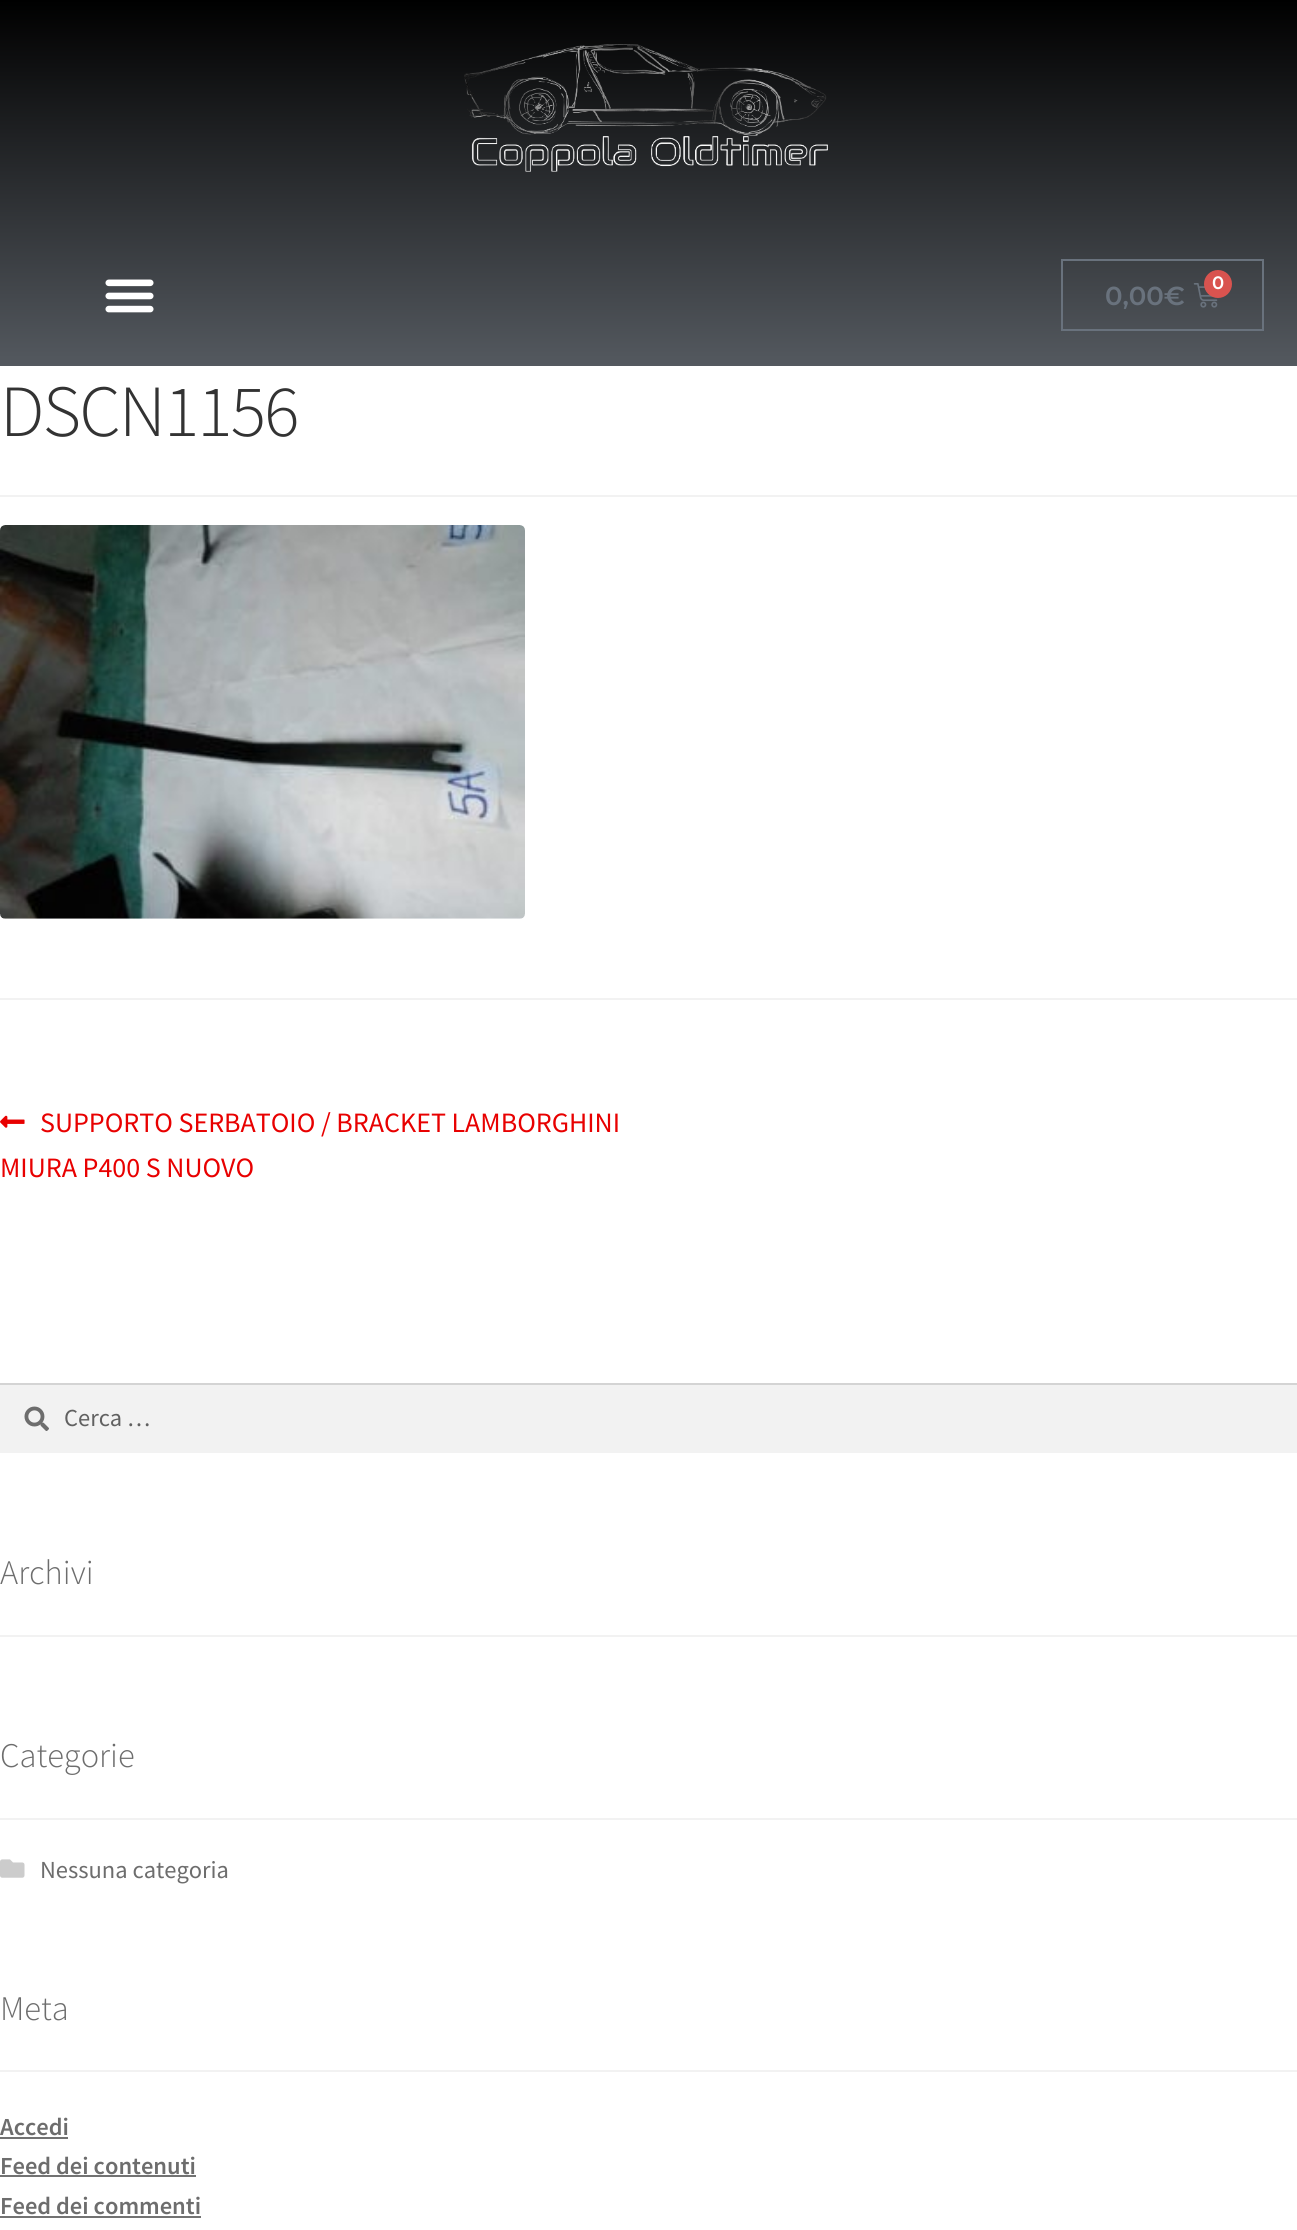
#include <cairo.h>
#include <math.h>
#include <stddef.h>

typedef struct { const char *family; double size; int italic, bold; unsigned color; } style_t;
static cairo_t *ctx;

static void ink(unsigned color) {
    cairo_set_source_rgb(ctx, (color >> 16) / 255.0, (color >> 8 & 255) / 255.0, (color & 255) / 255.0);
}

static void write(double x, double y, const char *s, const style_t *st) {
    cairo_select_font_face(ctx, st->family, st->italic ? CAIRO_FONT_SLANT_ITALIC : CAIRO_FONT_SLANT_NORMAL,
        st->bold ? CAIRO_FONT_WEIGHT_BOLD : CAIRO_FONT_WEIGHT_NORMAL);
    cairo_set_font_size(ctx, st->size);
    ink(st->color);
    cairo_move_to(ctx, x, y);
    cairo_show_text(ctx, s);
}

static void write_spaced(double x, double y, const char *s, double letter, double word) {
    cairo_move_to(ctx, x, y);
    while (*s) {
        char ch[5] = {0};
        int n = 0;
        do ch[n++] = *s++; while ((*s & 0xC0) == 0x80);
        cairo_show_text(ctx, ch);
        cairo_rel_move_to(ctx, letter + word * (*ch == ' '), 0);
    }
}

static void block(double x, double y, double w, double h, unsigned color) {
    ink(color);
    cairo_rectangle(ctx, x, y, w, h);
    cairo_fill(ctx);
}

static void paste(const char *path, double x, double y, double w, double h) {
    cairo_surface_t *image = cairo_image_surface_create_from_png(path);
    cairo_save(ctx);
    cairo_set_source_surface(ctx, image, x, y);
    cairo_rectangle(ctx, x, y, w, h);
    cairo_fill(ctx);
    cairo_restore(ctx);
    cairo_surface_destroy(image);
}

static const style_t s1 = {"Montserrat SemiBold", 18, 0, 0, 0xffffff};
static const style_t s2 = {"Montserrat SemiBold", 26, 0, 0, 0x69727d};
static const style_t s3 = {"Source Sans Pro", 28, 0, 0, 0xe80000};
static const style_t s4 = {"Source Sans Pro", 24.5, 0, 0, 0x616161};
static const style_t s5 = {"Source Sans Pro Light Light", 34.5, 0, 0, 0x6d6d6d};
static const style_t s6 = {"Source Sans Pro", 24.5, 0, 0, 0x6d6d6d};
static const style_t s7 = {"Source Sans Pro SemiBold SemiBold", 24.5, 0, 0, 0x6d6d6d};

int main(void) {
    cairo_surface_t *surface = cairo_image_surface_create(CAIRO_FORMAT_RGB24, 1297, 2230);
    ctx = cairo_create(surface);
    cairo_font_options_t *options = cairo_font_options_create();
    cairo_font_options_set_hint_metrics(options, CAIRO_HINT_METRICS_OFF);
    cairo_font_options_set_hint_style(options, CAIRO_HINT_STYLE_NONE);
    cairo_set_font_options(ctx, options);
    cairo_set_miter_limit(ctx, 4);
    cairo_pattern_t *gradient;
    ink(0xffffff);
    cairo_paint(ctx);
    gradient = cairo_pattern_create_linear(649, 0, 649, 366);
    cairo_pattern_add_color_stop_rgba(gradient, 0, 0, 0, 0, 1);
    cairo_pattern_add_color_stop_rgba(gradient, 1, 0.329, 0.349, 0.373, 1);
    cairo_set_source(ctx, gradient);
    cairo_pattern_destroy(gradient);
    cairo_rectangle(ctx, 0, 0, 1297, 366);
    cairo_fill(ctx);
    paste("pic1.png", 464, 44, 364, 128);
    paste("pic2.png", 105, 279, 49, 34);
    cairo_rectangle(ctx, 1062, 260, 201, 70);
    ink(0x69727d);
    cairo_stroke(ctx);
    paste("pic3.png", 1193, 283, 25, 25);
    ink(0xd9534f);
    cairo_arc(ctx, 1218, 284, 14, 0, 2 * M_PI);
    cairo_fill(ctx);
    write(1212, 289, "0", &s1);
    write(1105, 305, "0,00€", &s2);
    block(0, 495, 1297, 2, 0xf2f2f2);
    cairo_select_font_face(ctx, "Source Sans Pro Light Light", CAIRO_FONT_SLANT_NORMAL, CAIRO_FONT_WEIGHT_NORMAL);
    cairo_set_font_size(ctx, 73.5);
    ink(0x333333);
    write_spaced(0, 436, "DSCN1156", -1.75, 0);
    paste("pic4.png", 0, 525, 525, 394);
    block(0, 998, 1297, 2, 0xf2f2f2);
    paste("pic5.png", 0, 1115, 25, 13);
    write(40, 1132, "SUPPORTO SERBATOIO / BRACKET LAMBORGHINI", &s3);
    write(0, 1177, "MIURA P400 S NUOVO", &s3);
    block(0, 1385, 1297, 68, 0xf2f2f2);
    paste("pic6.png", 24, 1406, 25, 25);
    block(0, 1383, 1297, 2, 0xd4d4d4);
    write(64, 1426, "Cerca …", &s4);
    block(0, 1635, 1297, 2, 0xf2f2f2);
    write(0, 1584, "Archivi", &s5);
    block(0, 1818, 1297, 2, 0xf2f2f2);
    write(0, 1767, "Categorie", &s5);
    paste("pic7.png", 0, 1859, 25, 19);
    write(40, 1878, "Nessuna categoria", &s6);
    block(0, 2070, 1297, 2, 0xf2f2f2);
    write(0, 2020, "Meta", &s5);
    write(0, 2135, "Accedi", &s7);
    block(0, 2137, 68, 2, 0x727272);
    write(0, 2174, "Feed dei contenuti", &s7);
    block(0, 2175, 196, 2, 0x727272);
    write(0, 2214, "Feed dei commenti", &s7);
    block(0, 2216, 201, 2, 0x727272);
    cairo_surface_write_to_png(surface, "screenshot.png");
    cairo_font_options_destroy(options);
    cairo_destroy(ctx);
    cairo_surface_destroy(surface);
    return 0;
}
